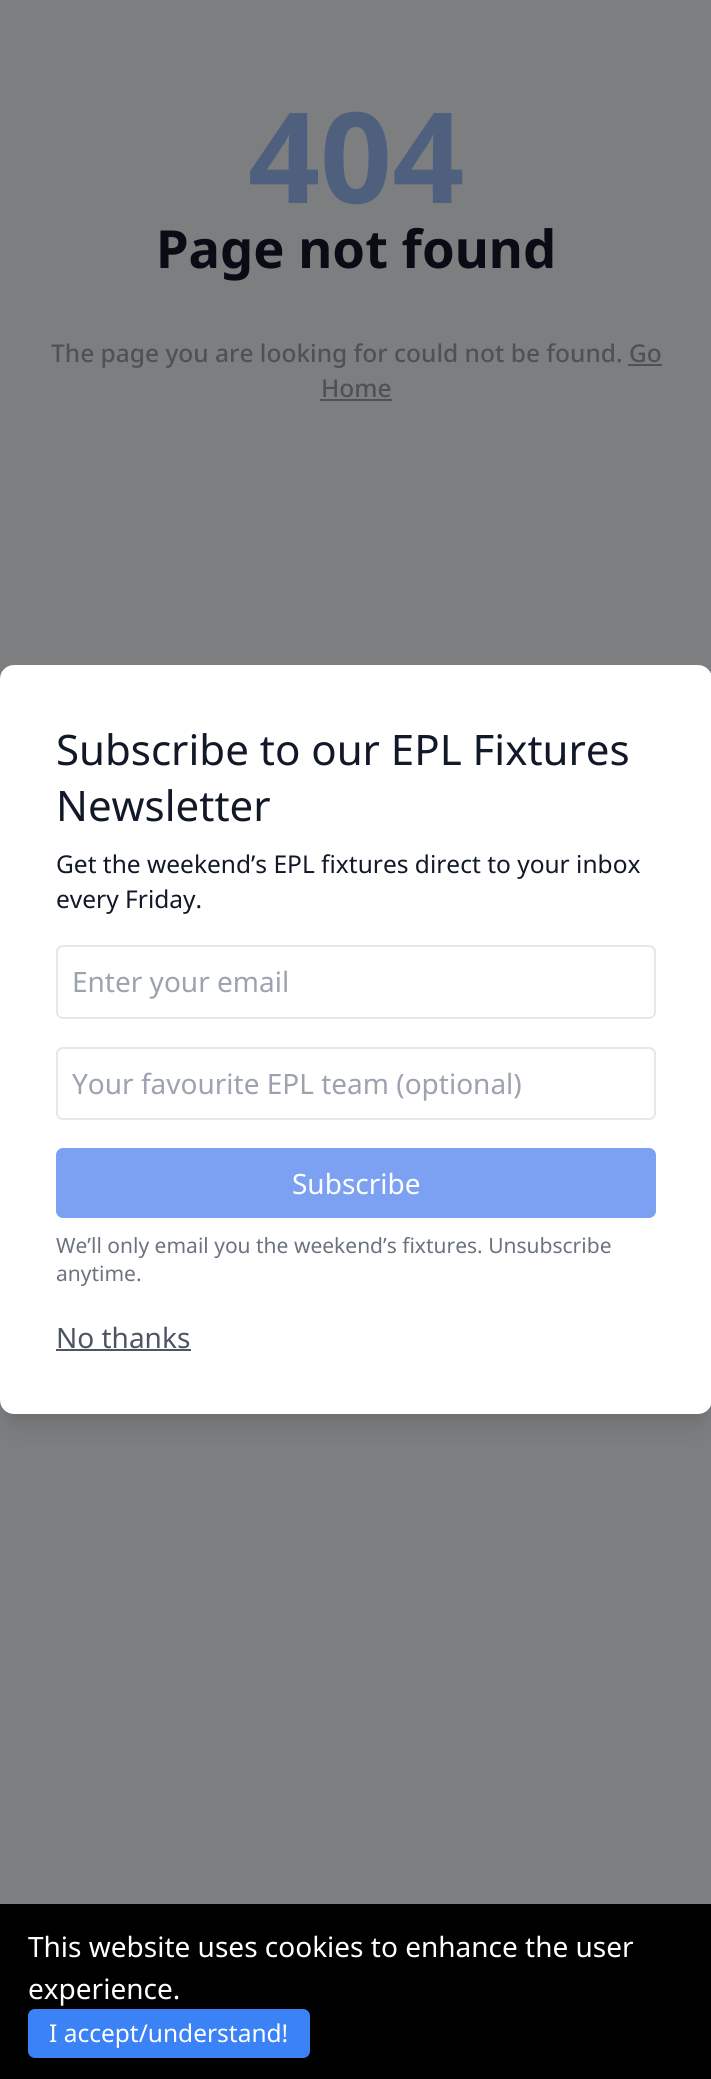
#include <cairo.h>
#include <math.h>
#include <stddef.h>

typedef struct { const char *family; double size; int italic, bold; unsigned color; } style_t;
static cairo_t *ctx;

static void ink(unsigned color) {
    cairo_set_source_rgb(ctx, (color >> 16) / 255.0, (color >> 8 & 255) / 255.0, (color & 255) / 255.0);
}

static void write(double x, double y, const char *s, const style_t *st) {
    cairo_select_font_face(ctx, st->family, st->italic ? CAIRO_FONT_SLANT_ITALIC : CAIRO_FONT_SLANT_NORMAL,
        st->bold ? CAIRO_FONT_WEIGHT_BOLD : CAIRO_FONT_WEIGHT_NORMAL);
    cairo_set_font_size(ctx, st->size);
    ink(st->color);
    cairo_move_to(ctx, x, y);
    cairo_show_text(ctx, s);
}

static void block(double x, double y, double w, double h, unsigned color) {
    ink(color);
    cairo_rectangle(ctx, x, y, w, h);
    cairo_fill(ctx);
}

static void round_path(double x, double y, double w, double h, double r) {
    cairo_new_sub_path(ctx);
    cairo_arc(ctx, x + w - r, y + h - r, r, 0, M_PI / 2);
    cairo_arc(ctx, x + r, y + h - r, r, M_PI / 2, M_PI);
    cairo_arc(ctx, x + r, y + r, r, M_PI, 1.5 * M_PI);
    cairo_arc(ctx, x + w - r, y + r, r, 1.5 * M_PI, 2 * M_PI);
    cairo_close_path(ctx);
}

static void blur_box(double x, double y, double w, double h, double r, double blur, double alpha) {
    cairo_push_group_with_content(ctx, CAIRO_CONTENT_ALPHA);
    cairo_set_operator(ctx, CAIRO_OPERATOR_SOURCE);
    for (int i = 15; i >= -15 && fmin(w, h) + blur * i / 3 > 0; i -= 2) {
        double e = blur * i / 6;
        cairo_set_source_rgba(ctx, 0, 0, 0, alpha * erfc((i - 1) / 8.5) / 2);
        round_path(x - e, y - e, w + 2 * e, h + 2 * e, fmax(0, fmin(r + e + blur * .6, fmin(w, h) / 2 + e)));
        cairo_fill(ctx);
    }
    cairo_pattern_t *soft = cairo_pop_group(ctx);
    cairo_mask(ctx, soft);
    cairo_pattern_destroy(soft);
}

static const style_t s1 = {"Noto Sans", 126, 0, 1, 0x4e607d};
static const style_t s2 = {"Noto Sans", 52.5, 0, 1, 0x090c14};
static const style_t s3 = {"Noto Sans Medium", 24.5, 0, 0, 0x4e5258};
static const style_t s4 = {"Noto Sans", 42, 0, 0, 0x111827};
static const style_t s5 = {"Noto Sans", 24.5, 0, 0, 0x111827};
static const style_t s6 = {"Noto Sans", 28, 0, 0, 0x9ca3af};
static const style_t s7 = {"Noto Sans", 28, 0, 0, 0xffffff};
static const style_t s8 = {"Noto Sans", 21, 0, 0, 0x6b7280};
static const style_t s9 = {"Noto Sans", 28, 0, 0, 0x4b5563};
static const style_t s10 = {"Noto Sans", 24.5, 0, 0, 0xffffff};

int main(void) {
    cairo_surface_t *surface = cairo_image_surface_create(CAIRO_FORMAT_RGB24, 711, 2079);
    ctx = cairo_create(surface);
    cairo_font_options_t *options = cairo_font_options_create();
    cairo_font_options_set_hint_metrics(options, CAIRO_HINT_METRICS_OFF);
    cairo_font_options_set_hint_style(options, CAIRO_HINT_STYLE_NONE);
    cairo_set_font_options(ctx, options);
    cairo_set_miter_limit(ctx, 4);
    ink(0x7d7e7f);
    cairo_paint(ctx);
    write(248, 203, "404", &s1);
    write(156, 268, "Page not found", &s2);
    write(51, 362, "The page you are looking for could not be found. Go", &s3);
    write(321, 397, "Home", &s3);
    block(628, 364, 34, 2, 0x4e5258);
    block(320, 399, 72, 2, 0x4e5258);
    ink(0x000000);
    blur_box(7, 679, 698, 735, 7, 5, 0.1);
    blur_box(5, 688, 702, 738, 9, 13, 0.1);
    ink(0xffffff);
    round_path(0, 665, 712, 749, 14);
    cairo_fill(ctx);
    write(56, 765, "Subscribe to our EPL Fixtures", &s4);
    write(56, 821, "Newsletter", &s4);
    write(56, 873, "Get the weekend’s EPL fixtures direct to your inbox", &s5);
    write(56, 908, "every Friday.", &s5);
    round_path(57, 946, 598, 72, 6);
    ink(0xe5e7eb);
    cairo_stroke(ctx);
    write(72, 992, "Enter your email", &s6);
    round_path(57, 1048, 598, 71, 6);
    ink(0xe5e7eb);
    cairo_stroke(ctx);
    write(72, 1094, "Your favourite EPL team (optional)", &s6);
    ink(0x7ca1f3);
    round_path(56, 1148, 600, 70, 7);
    cairo_fill(ctx);
    write(292, 1194, "Subscribe", &s7);
    write(56, 1253, "We’ll only email you the weekend’s fixtures. Unsubscribe", &s8);
    write(56, 1281, "anytime.", &s8);
    write(56, 1348, "No thanks", &s9);
    block(56, 1349, 135, 2, 0x4b5563);
    block(0, 1904, 711, 175, 0x000000);
    write(28, 1957, "This website uses cookies to enhance the user", &s7);
    write(28, 1999, "experience.", &s7);
    ink(0x3b82f6);
    round_path(28, 2009, 282, 49, 7);
    cairo_fill(ctx);
    write(49, 2042, "I accept/understand!", &s10);
    cairo_surface_write_to_png(surface, "screenshot.png");
    cairo_font_options_destroy(options);
    cairo_destroy(ctx);
    cairo_surface_destroy(surface);
    return 0;
}
